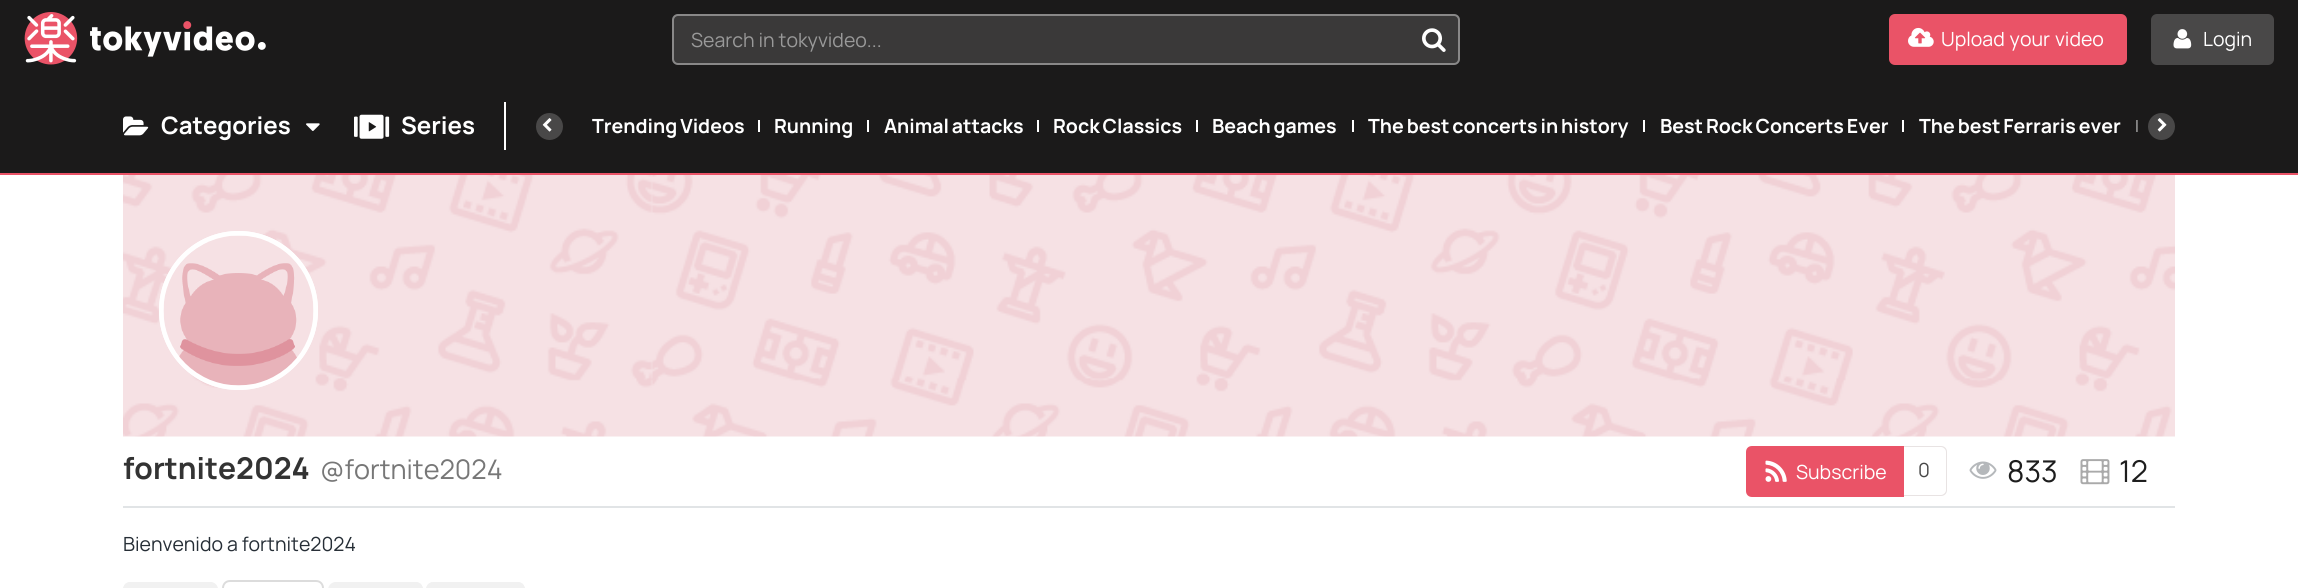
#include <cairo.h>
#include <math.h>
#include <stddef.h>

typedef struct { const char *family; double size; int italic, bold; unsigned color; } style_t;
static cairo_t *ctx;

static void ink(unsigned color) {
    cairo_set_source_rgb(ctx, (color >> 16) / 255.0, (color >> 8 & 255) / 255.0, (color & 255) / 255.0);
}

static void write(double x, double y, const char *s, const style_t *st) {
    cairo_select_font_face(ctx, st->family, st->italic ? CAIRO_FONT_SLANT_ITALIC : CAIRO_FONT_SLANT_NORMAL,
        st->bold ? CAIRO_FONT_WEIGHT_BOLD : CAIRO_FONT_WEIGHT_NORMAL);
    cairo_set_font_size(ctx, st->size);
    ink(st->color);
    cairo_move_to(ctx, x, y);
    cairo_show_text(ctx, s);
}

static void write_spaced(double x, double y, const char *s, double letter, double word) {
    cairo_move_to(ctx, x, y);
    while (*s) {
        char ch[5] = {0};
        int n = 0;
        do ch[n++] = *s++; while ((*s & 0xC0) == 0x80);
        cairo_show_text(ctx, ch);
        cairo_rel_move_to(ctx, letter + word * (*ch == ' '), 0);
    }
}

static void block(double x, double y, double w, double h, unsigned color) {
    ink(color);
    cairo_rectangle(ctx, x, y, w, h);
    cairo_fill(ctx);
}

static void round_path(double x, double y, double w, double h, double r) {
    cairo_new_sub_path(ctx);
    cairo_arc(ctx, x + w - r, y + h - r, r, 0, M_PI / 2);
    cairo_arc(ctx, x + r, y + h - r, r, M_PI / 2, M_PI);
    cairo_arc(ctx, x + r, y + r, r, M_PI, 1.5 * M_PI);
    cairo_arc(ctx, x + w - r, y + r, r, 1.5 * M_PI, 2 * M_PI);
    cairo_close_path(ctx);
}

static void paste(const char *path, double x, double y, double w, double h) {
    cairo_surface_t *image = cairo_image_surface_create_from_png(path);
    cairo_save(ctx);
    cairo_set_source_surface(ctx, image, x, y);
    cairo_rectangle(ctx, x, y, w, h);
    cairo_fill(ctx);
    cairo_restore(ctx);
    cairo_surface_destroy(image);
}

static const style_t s1 = {"Manrope", 19.5, 0, 0, 0x999999};
static const style_t s2 = {"Manrope", 19.5, 0, 0, 0xffffff};
static const style_t s3 = {"Manrope", 24, 0, 1, 0xffffff};
static const style_t s4 = {"Manrope", 19.5, 0, 1, 0xffffff};
static const style_t s5 = {"Manrope", 30, 0, 1, 0x333333};
static const style_t s6 = {"Manrope", 27, 0, 0, 0x777777};
static const style_t s7 = {"Manrope", 19.5, 0, 0, 0x484848};
static const style_t s8 = {"Manrope", 30, 0, 0, 0x1d1d1d};
static const style_t s9 = {"Manrope", 19.5, 0, 0, 0x262e36};

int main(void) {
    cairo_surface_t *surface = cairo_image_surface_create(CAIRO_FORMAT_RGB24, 2298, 588);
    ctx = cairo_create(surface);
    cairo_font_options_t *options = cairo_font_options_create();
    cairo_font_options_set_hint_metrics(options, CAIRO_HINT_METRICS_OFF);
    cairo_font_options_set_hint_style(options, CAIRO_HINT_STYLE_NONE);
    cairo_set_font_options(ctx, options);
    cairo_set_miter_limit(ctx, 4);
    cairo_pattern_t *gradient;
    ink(0xffffff);
    cairo_paint(ctx);
    block(0, 0, 2298, 173, 0x1b1a1a);
    paste("pic1.png", 24, 12, 242, 53);
    ink(0x3a3939);
    round_path(672, 14, 788, 51, 6);
    cairo_fill(ctx);
    round_path(673, 15, 786, 49, 5);
    cairo_set_source_rgba(ctx, 1, 1, 1, 0.4);
    cairo_stroke(ctx);
    write(691, 47, "Search in tokyvideo...", &s1);
    paste("pic2.png", 1422, 28, 24, 24);
    ink(0xea5367);
    round_path(1889, 14, 238, 51, 6);
    cairo_fill(ctx);
    paste("pic3.png", 1908, 27, 26, 20);
    ink(0xffffff);
    write_spaced(1941, 46, "Upload your video", 0, 1);
    ink(0x494848);
    round_path(2151, 14, 123, 51, 6);
    cairo_fill(ctx);
    paste("pic4.png", 2173, 29, 19, 20);
    write(2203, 46, "Login", &s2);
    block(0, 173, 2298, 2, 0xea5367);
    paste("pic5.png", 123, 116, 26, 20);
    write(161, 134, "Categories", &s3);
    paste("pic6.png", 306, 123, 14, 8);
    paste("pic7.png", 354, 114, 36, 25);
    write(401, 134, "Series", &s3);
    block(504, 102, 2, 48, 0xffffff);
    ink(0x494848);
    cairo_new_path(ctx);
    cairo_arc(ctx, 549.5, 126.5, 13.5, 0, 2 * M_PI);
    cairo_fill(ctx);
    paste("pic8.png", 542, 118, 10, 14);
    cairo_set_font_size(ctx, 19.5);
    ink(0xffffff);
    write_spaced(592, 133, "Trending Videos", 0, -1);
    block(758, 120, 2, 12, 0xffffff);
    write(774, 133, "Running", &s4);
    block(867, 120, 2, 12, 0xffffff);
    write_spaced(884, 133, "Animal attacks", 0, -1);
    block(1037, 120, 2, 12, 0xffffff);
    write_spaced(1053, 133, "Rock Classics", 0, -1);
    block(1196, 120, 2, 12, 0xffffff);
    write_spaced(1212, 133, "Beach games", 0, -1);
    block(1352, 120, 2, 12, 0xffffff);
    write_spaced(1368, 133, "The best concerts in history", 0, -1);
    block(1643, 120, 2, 12, 0xffffff);
    write_spaced(1660, 133, "Best Rock Concerts Ever", 0, -1);
    block(1902, 120, 2, 12, 0xffffff);
    write_spaced(1919, 133, "The best Ferraris ever", 0, -1);
    block(2136, 120, 2, 12, 0xffffff);
    gradient = cairo_pattern_create_linear(2175, 125, 2130, 125);
    cairo_pattern_add_color_stop_rgba(gradient, 0.73, 0.106, 0.102, 0.102, 1);
    cairo_pattern_add_color_stop_rgba(gradient, 1, 0.106, 0.102, 0.102, 0);
    cairo_set_source(ctx, gradient);
    cairo_pattern_destroy(gradient);
    cairo_rectangle(ctx, 2136, 120, 2, 12);
    cairo_fill(ctx);
    ink(0x494848);
    cairo_arc(ctx, 2161.5, 126.5, 13.5, 0, 2 * M_PI);
    cairo_fill(ctx);
    paste("pic9.png", 2157, 118, 10, 14);
    paste("pic10.png", 123, 175, 2052, 262);
    cairo_arc(ctx, 238.5, 310.5, 77, 0, 2 * M_PI);
    ink(0xffffff);
    cairo_set_line_width(ctx, 5);
    cairo_stroke(ctx);
    cairo_arc(ctx, 238.5, 310.5, 77, 0, 2 * M_PI);
    cairo_stroke(ctx);
    cairo_arc(ctx, 239, 311, 72.5, 0, 2 * M_PI);
    cairo_stroke(ctx);
    paste("pic11.png", 163, 235, 151, 151);
    block(123, 506, 2052, 2, 0xe1e4e6);
    write(123, 479, "fortnite2024", &s5);
    write(320, 479, "@fortnite2024", &s6);
    ink(0xea5367);
    cairo_new_path(ctx);
    cairo_move_to(ctx, 1752, 447);
    cairo_line_to(ctx, 1903, 447);
    cairo_line_to(ctx, 1903, 496);
    cairo_line_to(ctx, 1752, 496);
    cairo_curve_to(ctx, 1749, 496, 1747, 494, 1747, 491);
    cairo_line_to(ctx, 1747, 452);
    cairo_curve_to(ctx, 1747, 449, 1749, 447, 1752, 447);
    cairo_close_path(ctx);
    cairo_fill_preserve(ctx);
    cairo_set_line_width(ctx, 2);
    cairo_stroke(ctx);
    paste("pic12.png", 1765, 460, 22, 22);
    write(1796, 479, "Subscribe", &s2);
    ink(0xe8e3e3);
    cairo_set_fill_rule(ctx, CAIRO_FILL_RULE_EVEN_ODD);
    cairo_new_path(ctx);
    cairo_move_to(ctx, 1904, 446);
    cairo_line_to(ctx, 1941, 446);
    cairo_curve_to(ctx, 1944, 446, 1947, 448, 1947, 452);
    cairo_line_to(ctx, 1947, 490);
    cairo_curve_to(ctx, 1947, 494, 1944, 496, 1941, 496);
    cairo_line_to(ctx, 1904, 496);
    cairo_close_path(ctx);
    cairo_move_to(ctx, 1904, 447);
    cairo_line_to(ctx, 1941, 447);
    cairo_curve_to(ctx, 1943, 447, 1946, 449, 1946, 452);
    cairo_line_to(ctx, 1946, 490);
    cairo_curve_to(ctx, 1946, 493, 1943, 495, 1941, 495);
    cairo_line_to(ctx, 1904, 495);
    cairo_close_path(ctx);
    cairo_fill(ctx);
    write(1918, 477, "0", &s7);
    paste("pic13.png", 1969, 461, 28, 18);
    write(2007, 482, "833", &s8);
    paste("pic14.png", 2080, 459, 30, 26);
    write(2119, 482, "12", &s8);
    write(123, 551, "Bienvenido a fortnite2024", &s9);
    ink(0xf1f1f1);
    cairo_new_path(ctx);
    cairo_move_to(ctx, 131, 582);
    cairo_line_to(ctx, 210, 582);
    cairo_curve_to(ctx, 214.5, 582, 218, 585.5, 218, 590);
    cairo_line_to(ctx, 218, 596);
    cairo_line_to(ctx, 123, 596);
    cairo_line_to(ctx, 123, 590);
    cairo_curve_to(ctx, 123, 585.5, 126.5, 582, 131, 582);
    cairo_close_path(ctx);
    cairo_fill(ctx);
    cairo_new_path(ctx);
    cairo_move_to(ctx, 130, 582);
    cairo_line_to(ctx, 210, 582);
    cairo_curve_to(ctx, 214, 582, 218, 585, 218, 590);
    cairo_line_to(ctx, 218, 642);
    cairo_line_to(ctx, 123, 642);
    cairo_line_to(ctx, 123, 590);
    cairo_curve_to(ctx, 123, 585, 126, 582, 130, 582);
    cairo_close_path(ctx);
    cairo_move_to(ctx, 130, 584);
    cairo_line_to(ctx, 210, 584);
    cairo_curve_to(ctx, 213, 584, 216, 586, 216, 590);
    cairo_line_to(ctx, 216, 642);
    cairo_line_to(ctx, 124, 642);
    cairo_line_to(ctx, 124, 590);
    cairo_curve_to(ctx, 124, 586, 127, 584, 130, 584);
    cairo_close_path(ctx);
    cairo_fill(ctx);
    ink(0xdcdcdc);
    cairo_new_path(ctx);
    cairo_move_to(ctx, 230, 580);
    cairo_line_to(ctx, 316, 580);
    cairo_curve_to(ctx, 321, 580, 324, 584, 324, 588);
    cairo_line_to(ctx, 324, 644);
    cairo_line_to(ctx, 222, 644);
    cairo_line_to(ctx, 222, 588);
    cairo_curve_to(ctx, 222, 584, 225, 580, 230, 580);
    cairo_close_path(ctx);
    cairo_move_to(ctx, 230, 582);
    cairo_line_to(ctx, 316, 582);
    cairo_curve_to(ctx, 320, 582, 322, 585, 322, 588);
    cairo_line_to(ctx, 322, 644);
    cairo_line_to(ctx, 224, 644);
    cairo_line_to(ctx, 224, 588);
    cairo_curve_to(ctx, 224, 585, 226, 582, 230, 582);
    cairo_close_path(ctx);
    cairo_fill(ctx);
    ink(0xf1f1f1);
    cairo_new_path(ctx);
    cairo_move_to(ctx, 337, 582);
    cairo_line_to(ctx, 415, 582);
    cairo_curve_to(ctx, 419.5, 582, 423, 585.5, 423, 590);
    cairo_line_to(ctx, 423, 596);
    cairo_line_to(ctx, 329, 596);
    cairo_line_to(ctx, 329, 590);
    cairo_curve_to(ctx, 329, 585.5, 332.5, 582, 337, 582);
    cairo_close_path(ctx);
    cairo_fill(ctx);
    cairo_new_path(ctx);
    cairo_move_to(ctx, 336, 582);
    cairo_line_to(ctx, 416, 582);
    cairo_curve_to(ctx, 420, 582, 423, 585, 423, 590);
    cairo_line_to(ctx, 423, 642);
    cairo_line_to(ctx, 328, 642);
    cairo_line_to(ctx, 328, 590);
    cairo_curve_to(ctx, 328, 585, 332, 582, 336, 582);
    cairo_close_path(ctx);
    cairo_move_to(ctx, 336, 584);
    cairo_line_to(ctx, 416, 584);
    cairo_curve_to(ctx, 419, 584, 422, 586, 422, 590);
    cairo_line_to(ctx, 422, 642);
    cairo_line_to(ctx, 330, 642);
    cairo_line_to(ctx, 330, 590);
    cairo_curve_to(ctx, 330, 586, 333, 584, 336, 584);
    cairo_close_path(ctx);
    cairo_fill(ctx);
    cairo_new_path(ctx);
    cairo_move_to(ctx, 434, 582);
    cairo_line_to(ctx, 517, 582);
    cairo_curve_to(ctx, 521.5, 582, 525, 585.5, 525, 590);
    cairo_line_to(ctx, 525, 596);
    cairo_line_to(ctx, 426, 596);
    cairo_line_to(ctx, 426, 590);
    cairo_curve_to(ctx, 426, 585.5, 429.5, 582, 434, 582);
    cairo_close_path(ctx);
    cairo_fill(ctx);
    cairo_new_path(ctx);
    cairo_move_to(ctx, 434, 582);
    cairo_line_to(ctx, 518, 582);
    cairo_curve_to(ctx, 522, 582, 525, 585, 525, 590);
    cairo_line_to(ctx, 525, 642);
    cairo_line_to(ctx, 426, 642);
    cairo_line_to(ctx, 426, 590);
    cairo_curve_to(ctx, 426, 585, 429, 582, 434, 582);
    cairo_close_path(ctx);
    cairo_move_to(ctx, 434, 584);
    cairo_line_to(ctx, 518, 584);
    cairo_curve_to(ctx, 521, 584, 524, 586, 524, 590);
    cairo_line_to(ctx, 524, 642);
    cairo_line_to(ctx, 428, 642);
    cairo_line_to(ctx, 428, 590);
    cairo_curve_to(ctx, 428, 586, 430, 584, 434, 584);
    cairo_close_path(ctx);
    cairo_fill(ctx);
    cairo_surface_write_to_png(surface, "screenshot.png");
    cairo_font_options_destroy(options);
    cairo_destroy(ctx);
    cairo_surface_destroy(surface);
    return 0;
}
